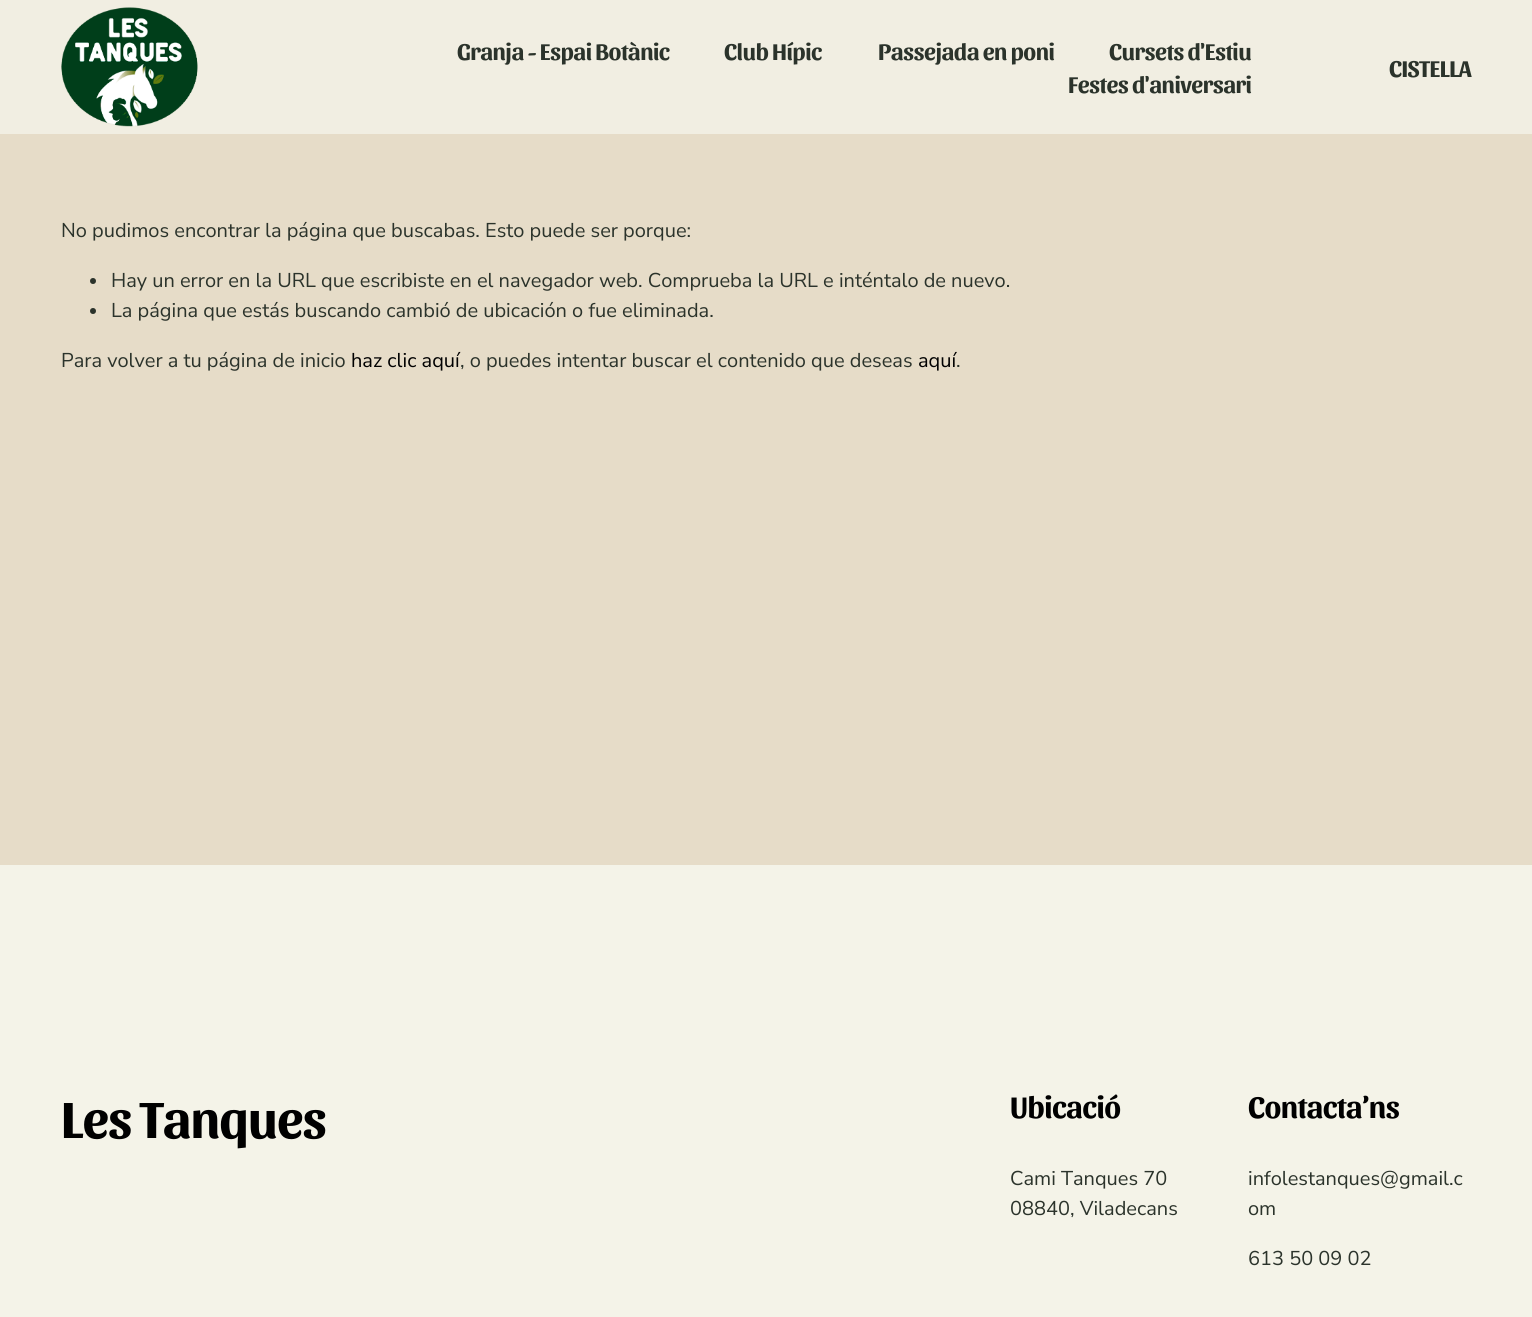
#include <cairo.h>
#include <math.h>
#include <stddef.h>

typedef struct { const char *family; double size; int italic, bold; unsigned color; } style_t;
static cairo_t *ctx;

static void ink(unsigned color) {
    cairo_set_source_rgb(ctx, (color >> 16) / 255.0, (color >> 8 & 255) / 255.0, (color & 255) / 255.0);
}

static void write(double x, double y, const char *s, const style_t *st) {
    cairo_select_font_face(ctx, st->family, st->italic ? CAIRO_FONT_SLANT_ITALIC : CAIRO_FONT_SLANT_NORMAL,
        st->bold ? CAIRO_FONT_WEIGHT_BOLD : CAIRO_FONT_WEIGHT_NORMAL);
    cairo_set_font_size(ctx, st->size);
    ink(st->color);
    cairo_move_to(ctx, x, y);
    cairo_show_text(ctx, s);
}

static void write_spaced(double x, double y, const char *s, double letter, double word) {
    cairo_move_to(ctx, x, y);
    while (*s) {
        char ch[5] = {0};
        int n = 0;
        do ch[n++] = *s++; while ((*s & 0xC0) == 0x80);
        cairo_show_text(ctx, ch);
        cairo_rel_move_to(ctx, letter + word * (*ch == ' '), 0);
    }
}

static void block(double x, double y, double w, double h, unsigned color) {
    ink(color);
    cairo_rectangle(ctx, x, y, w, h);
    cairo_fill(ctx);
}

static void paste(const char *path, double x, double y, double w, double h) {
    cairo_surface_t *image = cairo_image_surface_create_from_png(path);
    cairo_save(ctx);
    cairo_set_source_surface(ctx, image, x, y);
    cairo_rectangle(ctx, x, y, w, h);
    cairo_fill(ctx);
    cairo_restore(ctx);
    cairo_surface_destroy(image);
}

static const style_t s1 = {"Nunito Sans", 20, 0, 0, 0x2b332b};
static const style_t s2 = {"Nunito Sans", 20, 0, 0, 0x000000};

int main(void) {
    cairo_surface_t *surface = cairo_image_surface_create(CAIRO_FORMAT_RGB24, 1532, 1317);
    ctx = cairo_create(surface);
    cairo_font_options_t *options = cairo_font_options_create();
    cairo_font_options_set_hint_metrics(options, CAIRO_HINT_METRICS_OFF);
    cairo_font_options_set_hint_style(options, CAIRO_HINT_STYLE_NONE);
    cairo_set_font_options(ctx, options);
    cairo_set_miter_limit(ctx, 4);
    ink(0xe6dcc8);
    cairo_paint(ctx);
    block(0, 0, 1532, 134, 0xf1eee2);
    paste("pic1.png", 61, 7, 137, 120);
    cairo_select_font_face(ctx, "Sansita", CAIRO_FONT_SLANT_NORMAL, CAIRO_FONT_WEIGHT_BOLD);
    cairo_set_font_size(ctx, 23.75);
    ink(0x2b332b);
    write_spaced(457, 60, "Granja - Espai Botànic", -0.5, 0);
    write_spaced(724, 60, "Club Hípic", -0.5, 0);
    write_spaced(878, 60, "Passejada en poni", -0.5, 0);
    write_spaced(1109, 60, "Cursets d'Estiu", -0.5, 0);
    write_spaced(1068, 93, "Festes d'aniversari", -0.5, 0);
    write_spaced(1389, 77, "CISTELLA", -0.5, 0);
    write(61, 237, "No pudimos encontrar la página que buscabas. Esto puede ser porque:", &s1);
    cairo_new_path(ctx);
    cairo_arc(ctx, 93, 281, 3, 0, 2 * M_PI);
    cairo_fill(ctx);
    write(111, 287, "Hay un error en la URL que escribiste en el navegador web. Comprueba la URL e inténtalo de nuevo.", &s1);
    cairo_new_path(ctx);
    cairo_arc(ctx, 93, 311, 3, 0, 2 * M_PI);
    cairo_fill(ctx);
    write(111, 317, "La página que estás buscando cambió de ubicación o fue eliminada.", &s1);
    write(61, 367, "Para volver a tu página de inicio", &s1);
    write(351, 367, "haz clic aquí", &s2);
    write(460, 367, ", o puedes intentar buscar el contenido que deseas", &s1);
    write(918, 367, "aquí", &s2);
    write(956, 367, ".", &s1);
    block(0, 865, 1532, 452, 0xf4f3e8);
    cairo_select_font_face(ctx, "Sansita", CAIRO_FONT_SLANT_NORMAL, CAIRO_FONT_WEIGHT_BOLD);
    cairo_set_font_size(ctx, 53);
    ink(0x000000);
    write_spaced(61, 1138, "Les Tanques", -1, 0);
    cairo_set_font_size(ctx, 31);
    write_spaced(1010, 1118, "Ubicació", -0.6, 0);
    write(1010, 1185, "Cami Tanques 70", &s1);
    write(1010, 1215, "08840, Viladecans", &s1);
    cairo_select_font_face(ctx, "Sansita", CAIRO_FONT_SLANT_NORMAL, CAIRO_FONT_WEIGHT_BOLD);
    cairo_set_font_size(ctx, 31);
    ink(0x000000);
    write_spaced(1248, 1118, "Contacta’ns", -0.6, 0);
    write(1248, 1185, "infolestanques@gmail.c", &s1);
    write(1248, 1215, "om", &s1);
    write(1248, 1265, "613 50 09 02", &s1);
    cairo_surface_write_to_png(surface, "screenshot.png");
    cairo_font_options_destroy(options);
    cairo_destroy(ctx);
    cairo_surface_destroy(surface);
    return 0;
}
